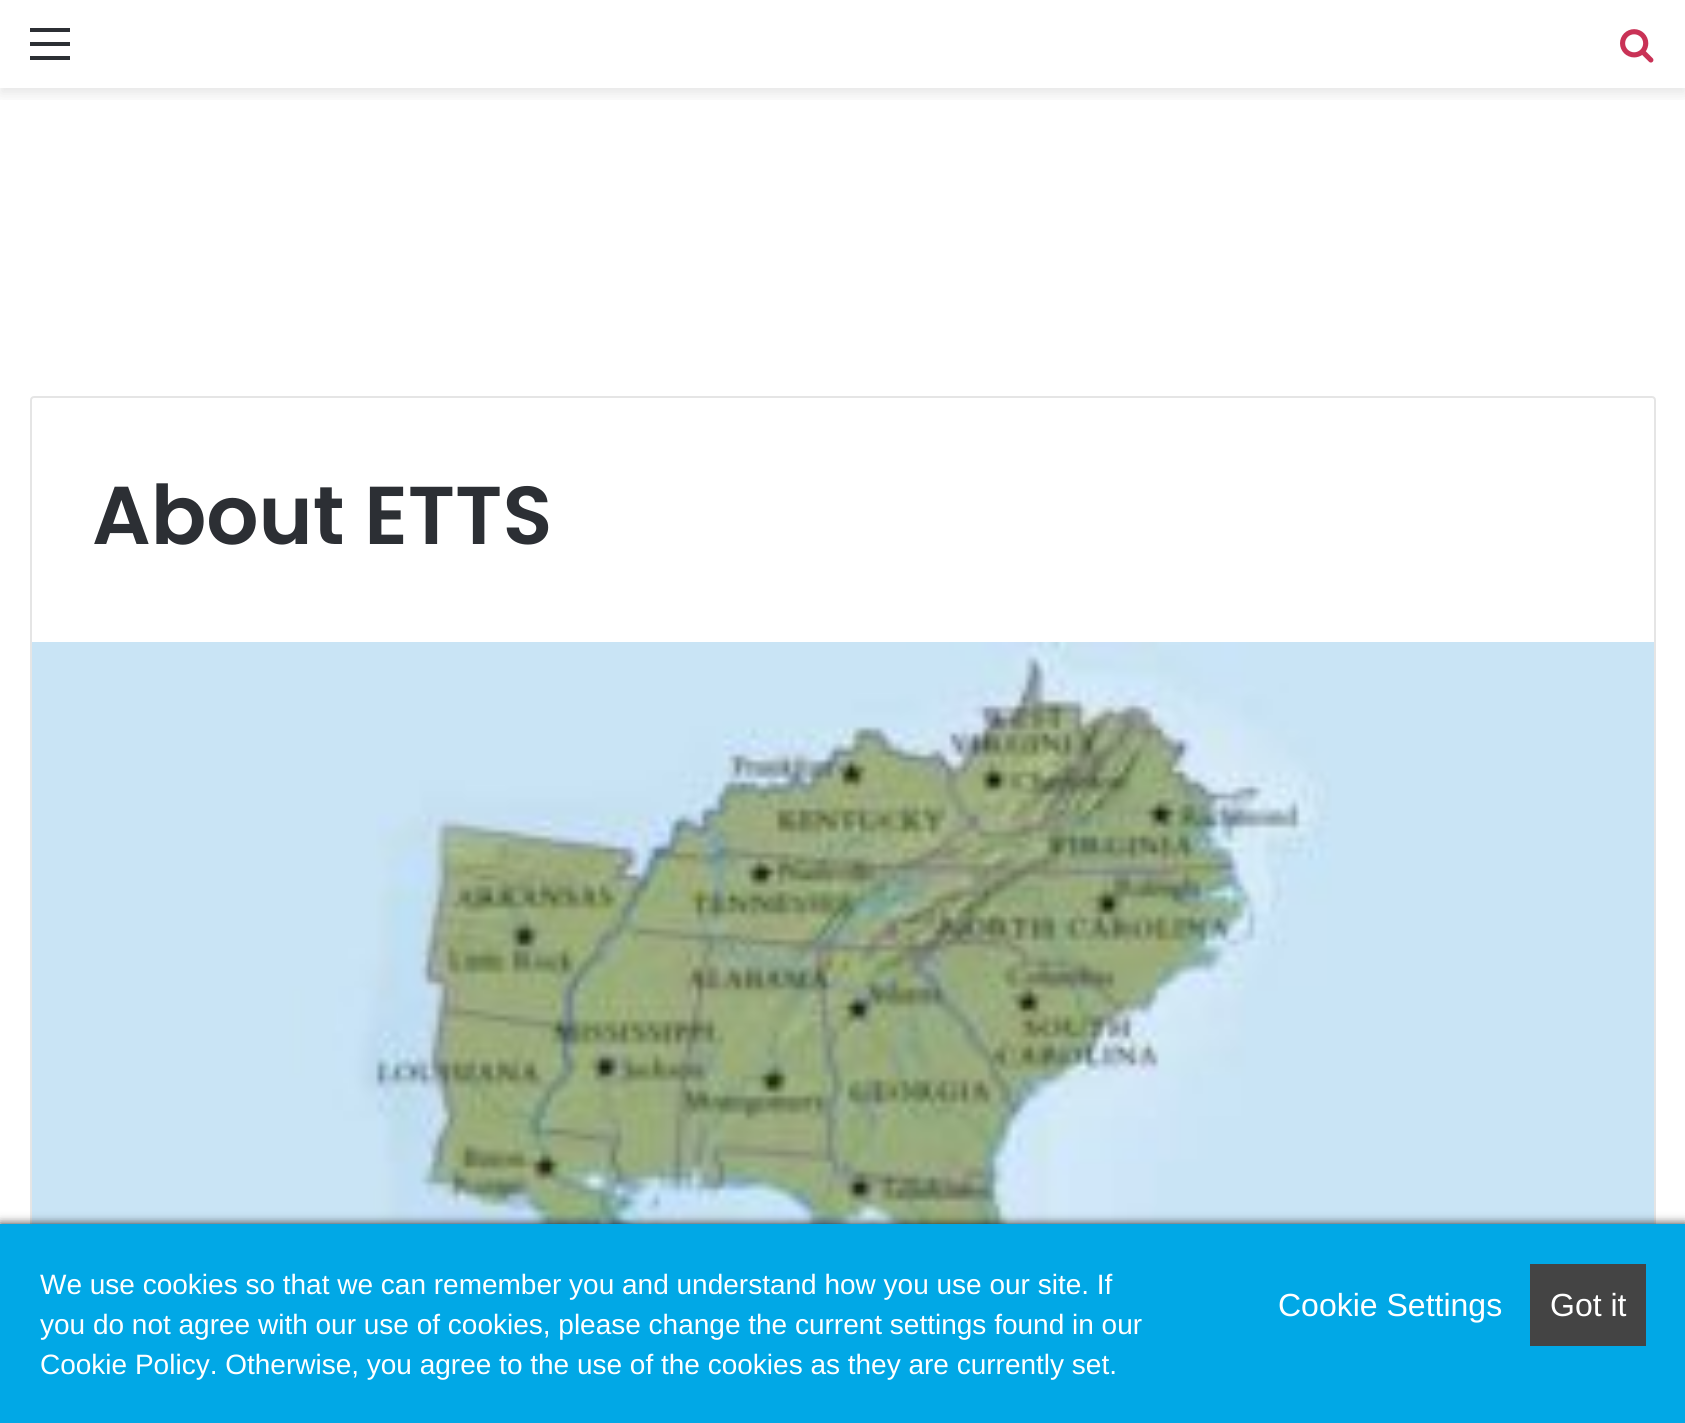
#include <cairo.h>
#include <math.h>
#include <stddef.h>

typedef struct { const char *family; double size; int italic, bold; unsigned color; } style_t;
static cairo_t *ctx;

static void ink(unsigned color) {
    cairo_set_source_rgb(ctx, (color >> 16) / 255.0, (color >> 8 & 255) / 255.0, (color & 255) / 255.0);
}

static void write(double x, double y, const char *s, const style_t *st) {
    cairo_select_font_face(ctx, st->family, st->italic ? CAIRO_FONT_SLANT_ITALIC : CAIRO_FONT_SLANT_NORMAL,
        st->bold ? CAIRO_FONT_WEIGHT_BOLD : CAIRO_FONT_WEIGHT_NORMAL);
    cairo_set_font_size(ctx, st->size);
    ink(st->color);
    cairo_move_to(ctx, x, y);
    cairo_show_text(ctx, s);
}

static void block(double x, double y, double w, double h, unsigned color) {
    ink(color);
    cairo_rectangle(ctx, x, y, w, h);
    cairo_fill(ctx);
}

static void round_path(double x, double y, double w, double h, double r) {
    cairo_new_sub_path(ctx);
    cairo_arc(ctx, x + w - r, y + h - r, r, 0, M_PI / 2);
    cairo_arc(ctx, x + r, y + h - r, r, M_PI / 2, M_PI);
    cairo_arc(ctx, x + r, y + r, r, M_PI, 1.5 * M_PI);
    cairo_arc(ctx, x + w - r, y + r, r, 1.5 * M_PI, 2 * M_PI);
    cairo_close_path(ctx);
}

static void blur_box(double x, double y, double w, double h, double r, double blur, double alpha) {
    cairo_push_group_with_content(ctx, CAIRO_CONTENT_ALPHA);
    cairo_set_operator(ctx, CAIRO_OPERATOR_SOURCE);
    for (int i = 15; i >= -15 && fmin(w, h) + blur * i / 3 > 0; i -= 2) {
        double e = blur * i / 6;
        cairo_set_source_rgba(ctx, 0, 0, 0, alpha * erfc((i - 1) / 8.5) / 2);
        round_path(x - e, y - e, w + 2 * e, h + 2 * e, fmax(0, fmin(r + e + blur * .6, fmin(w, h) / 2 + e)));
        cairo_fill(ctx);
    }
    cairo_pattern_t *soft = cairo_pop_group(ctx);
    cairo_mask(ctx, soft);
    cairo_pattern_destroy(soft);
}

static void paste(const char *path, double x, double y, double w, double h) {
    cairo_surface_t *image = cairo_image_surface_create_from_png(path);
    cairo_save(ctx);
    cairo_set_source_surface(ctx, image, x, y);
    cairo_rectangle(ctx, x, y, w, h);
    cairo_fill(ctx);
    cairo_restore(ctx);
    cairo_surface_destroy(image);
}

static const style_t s1 = {"Poppins SemiBold", 82, 0, 0, 0x2c2f34};
static const style_t s2 = {"Liberation Sans", 28, 0, 0, 0xffffff};
static const style_t s3 = {"Liberation Sans", 32, 0, 0, 0xffffff};

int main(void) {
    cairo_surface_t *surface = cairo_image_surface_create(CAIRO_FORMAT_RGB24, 1685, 1423);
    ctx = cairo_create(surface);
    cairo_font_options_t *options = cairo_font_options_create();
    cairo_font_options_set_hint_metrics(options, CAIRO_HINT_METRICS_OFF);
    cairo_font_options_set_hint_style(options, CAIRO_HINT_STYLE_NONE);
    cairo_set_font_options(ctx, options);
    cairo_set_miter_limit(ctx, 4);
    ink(0xffffff);
    cairo_paint(ctx);
    cairo_save(ctx);
    cairo_rectangle(ctx, 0, 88, 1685, 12);
    cairo_clip(ctx);
    ink(0x000000);
    blur_box(0, 6, 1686, 88, 0, 7, 0.1);
    cairo_restore(ctx);
    block(30, 42, 40, 4, 0x2c2f34);
    block(30, 28, 40, 4, 0x2c2f34);
    block(30, 56, 40, 4, 0x2c2f34);
    paste("pic1.png", 1620, 29, 34, 34);
    round_path(31, 397, 1624, 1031, 3);
    ink(0xe5e5e5);
    cairo_stroke(ctx);
    write(92, 544, "About ETTS", &s1);
    paste("pic2.png", 32, 642, 1622, 582);
    ink(0x000000);
    blur_box(0, 1224, 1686, 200, 0, 5, 0.8);
    block(0, 1224, 1685, 199, 0x01a8e6);
    write(40, 1294, "We use cookies so that we can remember you and understand how you use our site. If", &s2);
    write(40, 1334, "you do not agree with our use of cookies, please change the current settings found in our", &s2);
    write(40, 1374, "Cookie Policy. Otherwise, you agree to the use of the cookies as they are currently set.", &s2);
    write(1278, 1316, "Cookie Settings", &s3);
    block(1530, 1264, 116, 82, 0x444444);
    write(1550, 1316, "Got it", &s3);
    cairo_surface_write_to_png(surface, "screenshot.png");
    cairo_font_options_destroy(options);
    cairo_destroy(ctx);
    cairo_surface_destroy(surface);
    return 0;
}
